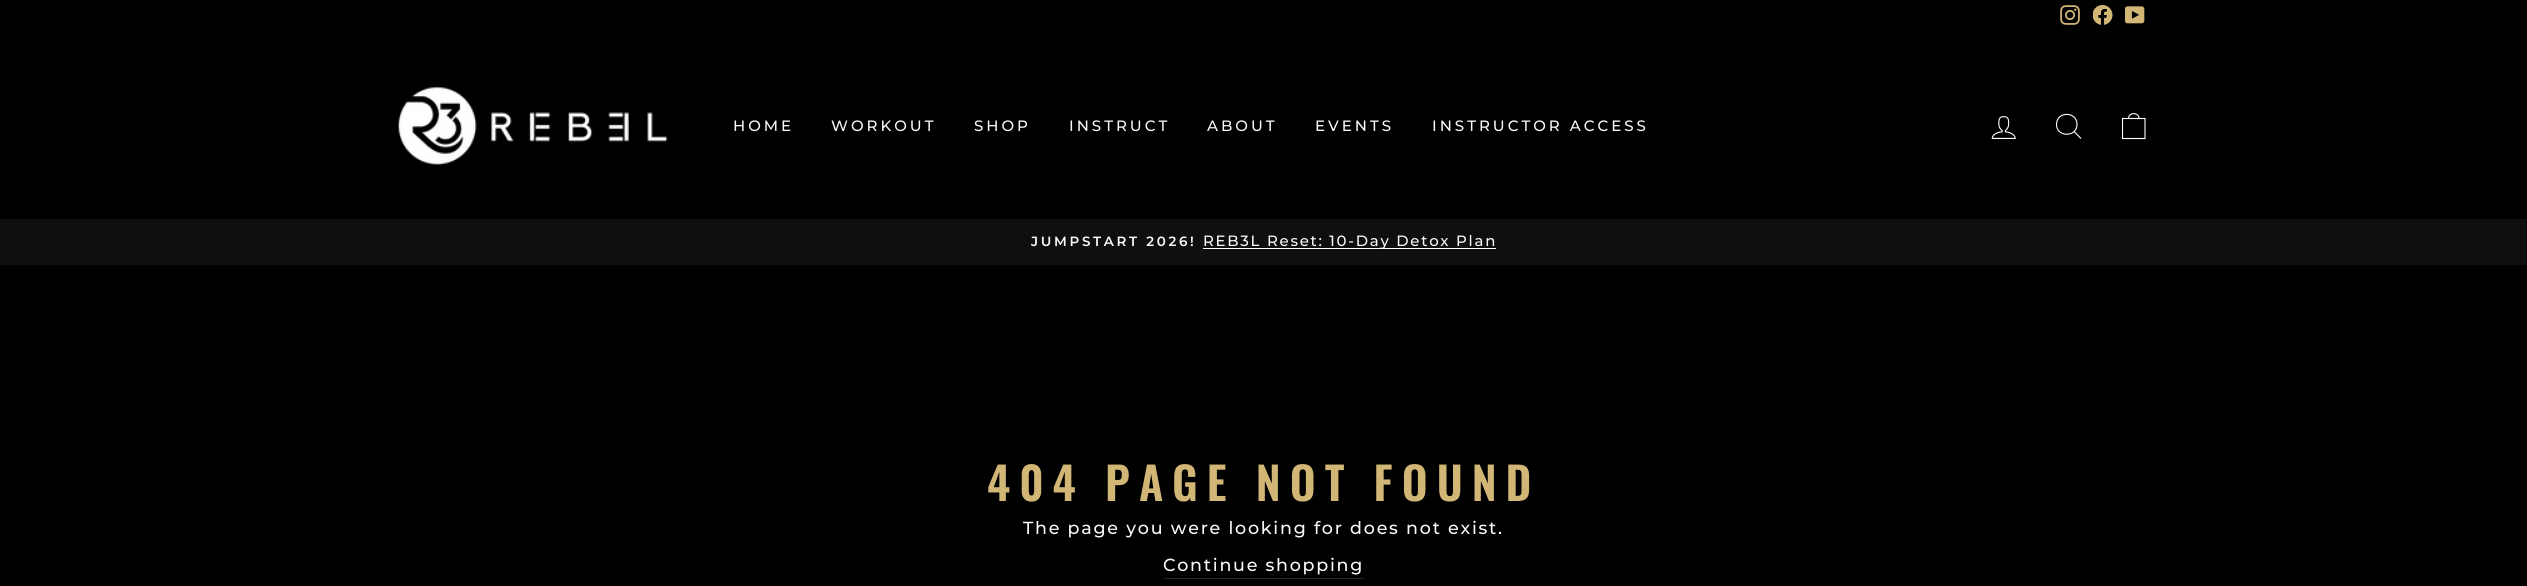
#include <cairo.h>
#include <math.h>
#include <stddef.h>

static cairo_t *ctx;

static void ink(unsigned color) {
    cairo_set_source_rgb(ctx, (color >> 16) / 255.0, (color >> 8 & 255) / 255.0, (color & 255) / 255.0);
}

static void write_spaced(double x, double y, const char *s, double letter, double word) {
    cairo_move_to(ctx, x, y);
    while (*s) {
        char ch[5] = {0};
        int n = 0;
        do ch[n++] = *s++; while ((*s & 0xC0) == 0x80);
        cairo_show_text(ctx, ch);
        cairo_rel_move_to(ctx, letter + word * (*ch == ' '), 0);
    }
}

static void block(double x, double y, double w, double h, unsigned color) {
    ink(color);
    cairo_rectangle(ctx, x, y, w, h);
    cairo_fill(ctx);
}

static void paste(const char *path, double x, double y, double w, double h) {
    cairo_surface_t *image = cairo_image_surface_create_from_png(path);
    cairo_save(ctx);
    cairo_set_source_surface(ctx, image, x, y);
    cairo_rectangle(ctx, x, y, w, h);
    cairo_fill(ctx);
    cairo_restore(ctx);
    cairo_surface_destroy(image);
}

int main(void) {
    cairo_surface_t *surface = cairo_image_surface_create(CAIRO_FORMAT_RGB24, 2527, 586);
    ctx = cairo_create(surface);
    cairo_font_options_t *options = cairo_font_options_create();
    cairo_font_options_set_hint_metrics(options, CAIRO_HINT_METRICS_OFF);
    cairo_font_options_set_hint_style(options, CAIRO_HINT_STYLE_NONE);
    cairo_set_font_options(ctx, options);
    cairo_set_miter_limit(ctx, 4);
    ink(0x000000);
    cairo_paint(ctx);
    paste("pic1.png", 2060, 5, 20, 20);
    paste("pic2.png", 2093, 5, 20, 20);
    paste("pic3.png", 2125, 6, 20, 18);
    paste("pic4.png", 397, 86, 271, 79);
    cairo_select_font_face(ctx, "Montserrat Medium", CAIRO_FONT_SLANT_NORMAL, CAIRO_FONT_WEIGHT_NORMAL);
    cairo_set_font_size(ctx, 15);
    ink(0xfafafa);
    write_spaced(733, 131, "HOME", 3, 0);
    write_spaced(831, 131, "WORKOUT", 3, 0);
    write_spaced(974, 131, "SHOP", 3, 0);
    write_spaced(1069, 131, "INSTRUCT", 3, 0);
    write_spaced(1207, 131, "ABOUT", 3, 0);
    write_spaced(1315, 131, "EVENTS", 3, 0);
    write_spaced(1432, 131, "INSTRUCTOR ACCESS", 3, 0);
    paste("pic5.png", 1991, 116, 25, 23);
    cairo_new_path(ctx);
    cairo_move_to(ctx, 2077, 124.5);
    cairo_curve_to(ctx, 2077, 137.5, 2056.5, 137.5, 2056.5, 124.5);
    cairo_curve_to(ctx, 2056.5, 111, 2077, 111, 2077, 124.5);
    cairo_close_path(ctx);
    cairo_move_to(ctx, 2081, 138.5);
    cairo_line_to(ctx, 2074, 131.5);
    ink(0xffffff);
    cairo_set_line_width(ctx, 1.1);
    cairo_stroke(ctx);
    cairo_new_path(ctx);
    cairo_move_to(ctx, 2122.5, 118.5);
    cairo_line_to(ctx, 2145, 118.5);
    cairo_line_to(ctx, 2145, 138.5);
    cairo_line_to(ctx, 2122.5, 138.5);
    cairo_close_path(ctx);
    cairo_move_to(ctx, 2128.5, 118.5);
    cairo_curve_to(ctx, 2128.5, 112, 2139, 112, 2139, 118.5);
    cairo_stroke(ctx);
    block(0, 219, 2527, 46, 0x0f0f0f);
    cairo_select_font_face(ctx, "Montserrat SemiBold", CAIRO_FONT_SLANT_NORMAL, CAIRO_FONT_WEIGHT_NORMAL);
    cairo_set_font_size(ctx, 13.4);
    ink(0xfafafa);
    write_spaced(1031, 246, "JUMPSTART 2026!", 2.7, 0);
    block(1203, 248, 293, 1, 0xffffff);
    cairo_select_font_face(ctx, "Montserrat Medium", CAIRO_FONT_SLANT_NORMAL, CAIRO_FONT_WEIGHT_NORMAL);
    cairo_set_font_size(ctx, 14.9);
    ink(0xfafafa);
    write_spaced(1203, 246, "REB3L Reset: 10-Day Detox Plan", 1.75, 0);
    cairo_select_font_face(ctx, "Oswald SemiBold", CAIRO_FONT_SLANT_NORMAL, CAIRO_FONT_WEIGHT_NORMAL);
    cairo_set_font_size(ctx, 45);
    ink(0xd1b676);
    write_spaced(987, 501, "404 PAGE NOT FOUND", 9, 0);
    cairo_select_font_face(ctx, "Montserrat Medium", CAIRO_FONT_SLANT_NORMAL, CAIRO_FONT_WEIGHT_NORMAL);
    cairo_set_font_size(ctx, 17.5);
    ink(0xfafafa);
    write_spaced(1023, 534, "The page you were looking for does not exist.", 1.75, 0);
    block(1164, 578, 200, 1, 0x262626);
    ink(0xfafafa);
    write_spaced(1163, 571, "Continue shopping", 1.75, 0);
    cairo_surface_write_to_png(surface, "screenshot.png");
    cairo_font_options_destroy(options);
    cairo_destroy(ctx);
    cairo_surface_destroy(surface);
    return 0;
}
